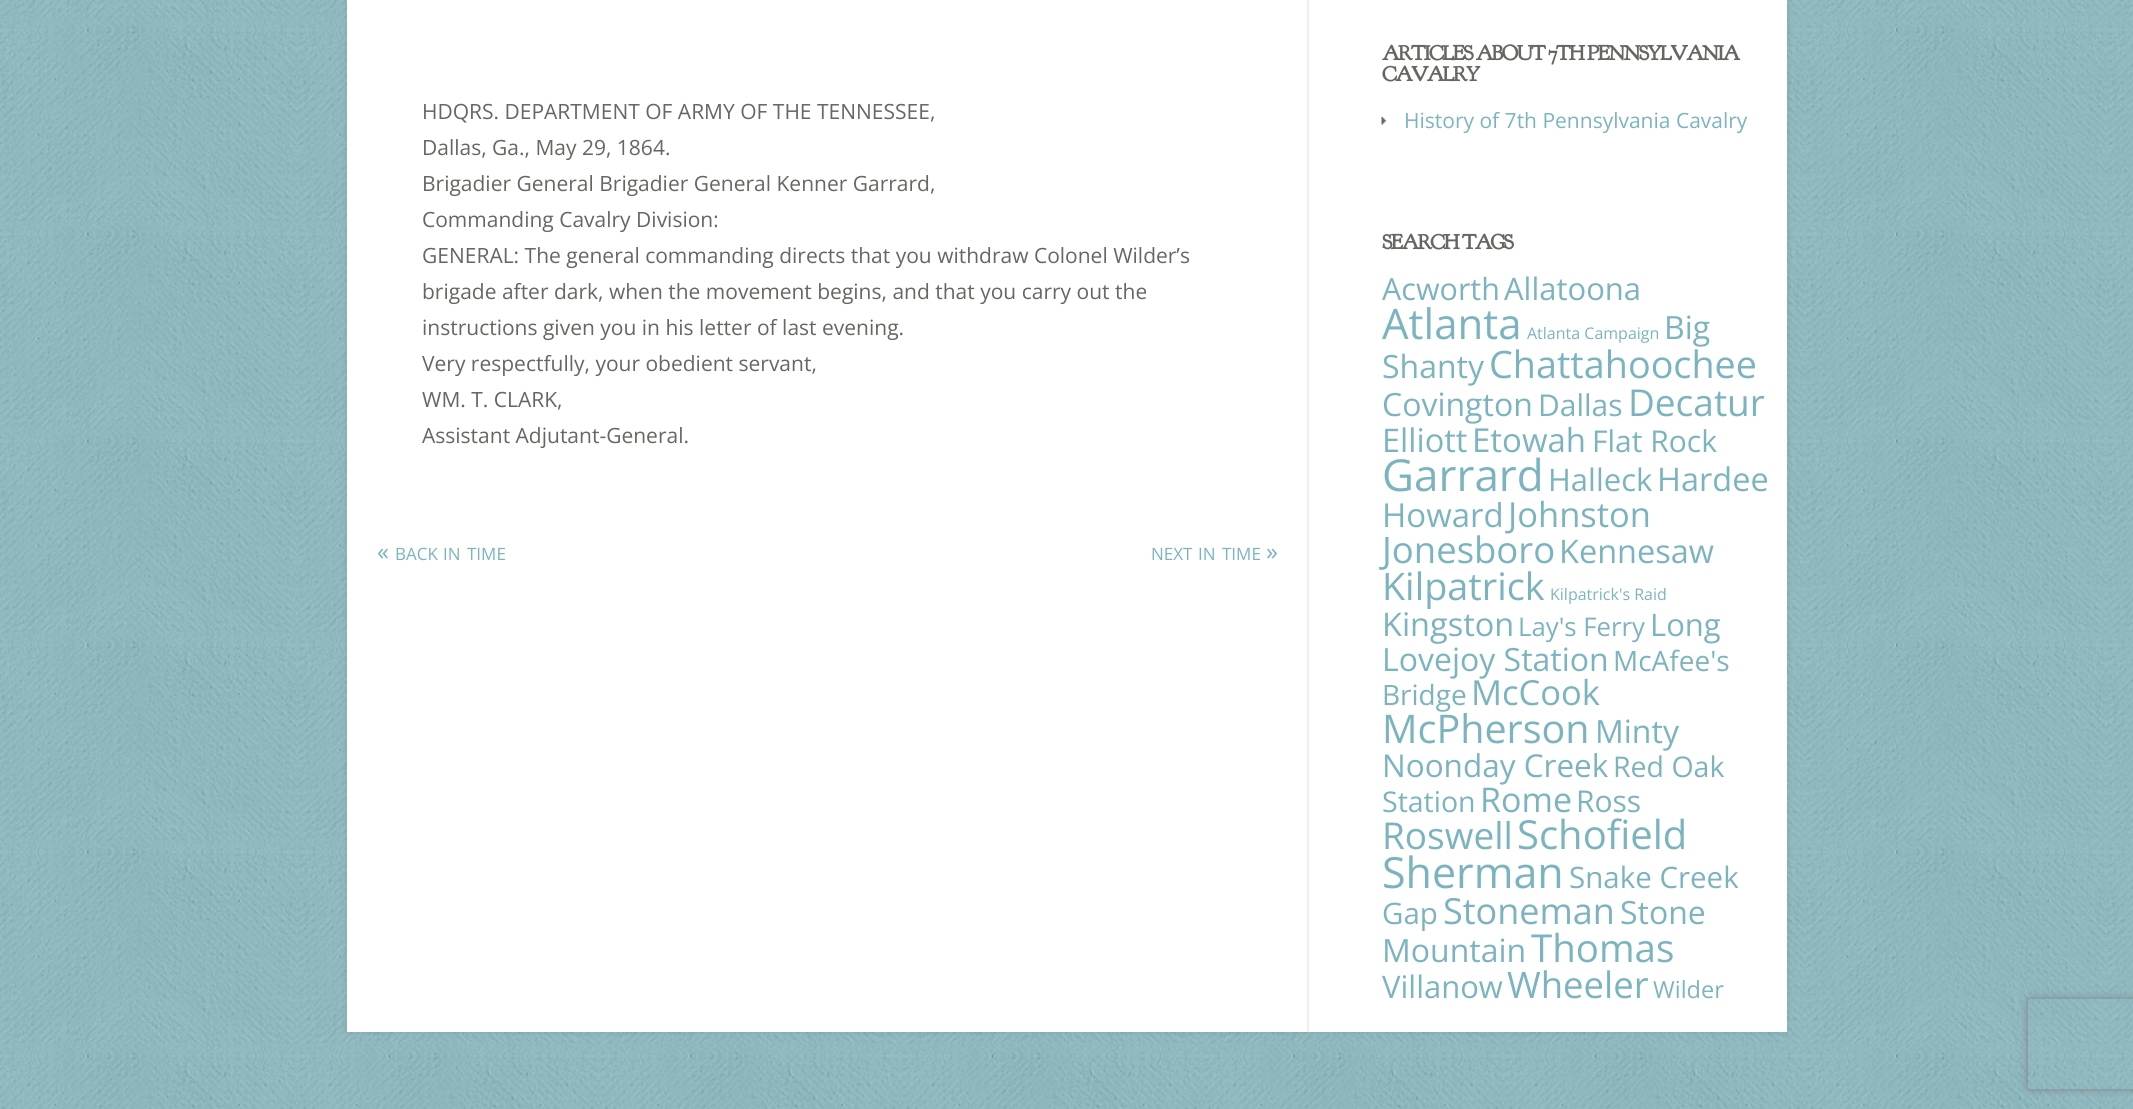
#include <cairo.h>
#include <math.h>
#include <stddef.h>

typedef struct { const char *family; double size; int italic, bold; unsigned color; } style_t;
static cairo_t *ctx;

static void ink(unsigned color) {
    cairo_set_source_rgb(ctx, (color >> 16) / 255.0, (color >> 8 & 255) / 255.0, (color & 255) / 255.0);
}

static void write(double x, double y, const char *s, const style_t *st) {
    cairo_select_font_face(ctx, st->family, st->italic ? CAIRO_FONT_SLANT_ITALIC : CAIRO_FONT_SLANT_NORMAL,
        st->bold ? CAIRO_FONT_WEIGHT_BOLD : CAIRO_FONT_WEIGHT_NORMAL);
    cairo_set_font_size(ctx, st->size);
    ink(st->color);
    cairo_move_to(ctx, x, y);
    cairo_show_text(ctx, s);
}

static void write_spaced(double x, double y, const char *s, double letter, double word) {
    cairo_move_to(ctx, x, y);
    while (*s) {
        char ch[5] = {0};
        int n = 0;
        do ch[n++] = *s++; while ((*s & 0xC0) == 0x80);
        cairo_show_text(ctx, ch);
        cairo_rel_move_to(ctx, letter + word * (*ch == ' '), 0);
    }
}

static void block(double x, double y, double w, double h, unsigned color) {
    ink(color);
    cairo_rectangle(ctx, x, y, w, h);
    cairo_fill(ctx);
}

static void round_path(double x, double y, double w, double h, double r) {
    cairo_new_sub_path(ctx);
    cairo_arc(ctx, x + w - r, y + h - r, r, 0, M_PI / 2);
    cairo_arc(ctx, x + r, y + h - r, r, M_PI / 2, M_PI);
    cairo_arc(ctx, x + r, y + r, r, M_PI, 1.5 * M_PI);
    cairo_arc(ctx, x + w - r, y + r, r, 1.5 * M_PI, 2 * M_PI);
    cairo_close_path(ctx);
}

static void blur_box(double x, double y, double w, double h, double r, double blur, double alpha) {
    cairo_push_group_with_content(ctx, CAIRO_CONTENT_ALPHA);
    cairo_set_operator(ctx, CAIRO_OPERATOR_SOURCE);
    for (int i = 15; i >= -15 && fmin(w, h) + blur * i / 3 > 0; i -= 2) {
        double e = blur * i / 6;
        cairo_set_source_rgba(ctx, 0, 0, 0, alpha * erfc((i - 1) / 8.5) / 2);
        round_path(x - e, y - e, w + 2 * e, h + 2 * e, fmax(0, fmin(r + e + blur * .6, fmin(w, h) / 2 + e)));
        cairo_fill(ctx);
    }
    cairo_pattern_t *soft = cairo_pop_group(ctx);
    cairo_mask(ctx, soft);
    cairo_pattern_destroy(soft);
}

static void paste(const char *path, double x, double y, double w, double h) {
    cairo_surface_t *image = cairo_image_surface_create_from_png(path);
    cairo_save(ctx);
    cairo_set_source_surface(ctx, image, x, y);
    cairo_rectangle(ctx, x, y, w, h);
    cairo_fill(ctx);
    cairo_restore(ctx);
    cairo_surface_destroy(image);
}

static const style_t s1 = {"Open Sans", 21, 0, 0, 0x676761};
static const style_t s2 = {"Open Sans", 24, 0, 0, 0x7bb4bf};
static const style_t s3 = {"Open Sans", 17, 0, 0, 0x7bb4bf};
static const style_t s4 = {"Open Sans", 21, 0, 0, 0x7bb4bf};
static const style_t s5 = {"Open Sans", 30.5, 0, 0, 0x7bb4bf};
static const style_t s6 = {"Open Sans", 31, 0, 0, 0x7bb4bf};
static const style_t s7 = {"Open Sans", 42, 0, 0, 0x7bb4bf};
static const style_t s8 = {"Open Sans", 16, 0, 0, 0x7bb4bf};
static const style_t s9 = {"Open Sans", 32, 0, 0, 0x7bb4bf};
static const style_t s10 = {"Open Sans", 37.75, 0, 0, 0x7bb4bf};
static const style_t s11 = {"Open Sans", 30, 0, 0, 0x7bb4bf};
static const style_t s12 = {"Open Sans", 37, 0, 0, 0x7bb4bf};
static const style_t s13 = {"Open Sans", 32.5, 0, 0, 0x7bb4bf};
static const style_t s14 = {"Open Sans", 33, 0, 0, 0x7bb4bf};
static const style_t s15 = {"Open Sans", 44, 0, 0, 0x7bb4bf};
static const style_t s16 = {"Open Sans", 34.5, 0, 0, 0x7bb4bf};
static const style_t s17 = {"Open Sans", 36.5, 0, 0, 0x7bb4bf};
static const style_t s18 = {"Open Sans", 25.75, 0, 0, 0x7bb4bf};
static const style_t s19 = {"Open Sans", 28, 0, 0, 0x7bb4bf};
static const style_t s20 = {"Open Sans", 39.5, 0, 0, 0x7bb4bf};
static const style_t s21 = {"Open Sans", 31.5, 0, 0, 0x7bb4bf};
static const style_t s22 = {"Open Sans", 28.5, 0, 0, 0x7bb4bf};
static const style_t s23 = {"Open Sans", 34, 0, 0, 0x7bb4bf};
static const style_t s24 = {"Open Sans", 40, 0, 0, 0x7bb4bf};
static const style_t s25 = {"Open Sans", 43, 0, 0, 0x7bb4bf};
static const style_t s26 = {"Open Sans", 29.5, 0, 0, 0x7bb4bf};
static const style_t s27 = {"Open Sans", 36, 0, 0, 0x7bb4bf};
static const style_t s28 = {"Open Sans", 38.5, 0, 0, 0x7bb4bf};
static const style_t s29 = {"Open Sans", 23.5, 0, 0, 0x7bb4bf};

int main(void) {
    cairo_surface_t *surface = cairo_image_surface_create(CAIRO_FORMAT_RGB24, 2133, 1109);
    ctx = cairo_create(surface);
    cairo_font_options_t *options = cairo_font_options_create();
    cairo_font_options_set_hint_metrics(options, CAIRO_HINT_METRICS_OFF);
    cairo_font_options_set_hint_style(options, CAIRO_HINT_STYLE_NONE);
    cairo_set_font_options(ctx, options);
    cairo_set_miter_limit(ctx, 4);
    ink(0x7bb4bf);
    cairo_paint(ctx);
    paste("pic1.png", 0, 0, 2133, 1109);
    ink(0x000000);
    blur_box(347, -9, 1440, 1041, 0, 3, 0.1);
    block(347, 0, 1440, 1032, 0xffffff);
    write(422, 119, "HDQRS. DEPARTMENT OF ARMY OF THE TENNESSEE,", &s1);
    write(422, 155, "Dallas, Ga., May 29, 1864.", &s1);
    write(422, 191, "Brigadier General Brigadier General Kenner Garrard,", &s1);
    write(422, 227, "Commanding Cavalry Division:", &s1);
    write(422, 263, "GENERAL: The general commanding directs that you withdraw Colonel Wilder’s", &s1);
    write(422, 299, "brigade after dark, when the movement begins, and that you carry out the", &s1);
    write(422, 335, "instructions given you in his letter of last evening.", &s1);
    write(422, 371, "Very respectfully, your obedient servant,", &s1);
    write(422, 407, "WM. T. CLARK,", &s1);
    write(422, 443, "Assistant Adjutant-General.", &s1);
    write(377, 560, "«", &s2);
    write(395, 560, "BACK", &s3);
    write(443, 560, "IN", &s3);
    write(467, 560, "TIME", &s3);
    write(1151, 560, "NEXT", &s3);
    write(1198, 560, "IN", &s3);
    write(1222, 560, "TIME", &s3);
    write(1266, 560, "»", &s2);
    block(1307, 0, 2, 1032, 0xf0f0e5);
    cairo_select_font_face(ctx, "Goudy Bookletter 1911", CAIRO_FONT_SLANT_NORMAL, CAIRO_FONT_WEIGHT_BOLD);
    cairo_set_font_size(ctx, 21);
    ink(0x676761);
    write_spaced(1382, 60, "ARTICLES ABOUT 7TH PENNSYLVANIA", -1.5, 0);
    write_spaced(1382, 81, "CAVALRY", -1.5, 0);
    paste("pic2.png", 1381, 117, 5, 8);
    write(1404, 128, "History of 7th Pennsylvania Cavalry", &s4);
    cairo_select_font_face(ctx, "Goudy Bookletter 1911", CAIRO_FONT_SLANT_NORMAL, CAIRO_FONT_WEIGHT_BOLD);
    ink(0x676761);
    write_spaced(1382, 249, "SEARCH TAGS", -1.5, 0);
    write(1382, 300, "Acworth", &s5);
    write(1504, 300, "Allatoona", &s6);
    write(1382, 339, "Atlanta", &s7);
    write(1527, 339, "Atlanta Campaign", &s8);
    write(1664, 339, "Big", &s9);
    write(1382, 378, "Shanty", &s9);
    write(1489, 378, "Chattahoochee", &s10);
    write(1382, 416, "Covington", &s9);
    write(1538, 416, "Dallas", &s11);
    write(1628, 416, "Decatur", &s12);
    write(1382, 452, "Elliott", &s13);
    write(1472, 452, "Etowah", &s14);
    write(1592, 452, "Flat Rock", &s11);
    write(1382, 491, "Garrard", &s15);
    write(1548, 491, "Halleck", &s6);
    write(1657, 491, "Hardee", &s13);
    write(1382, 527, "Howard", &s14);
    write(1508, 527, "Johnston", &s16);
    write(1382, 563, "Jonesboro", &s17);
    write(1559, 563, "Kennesaw", &s13);
    write(1382, 600, "Kilpatrick", &s10);
    write(1550, 600, "Kilpatrick's Raid", &s8);
    write(1382, 636, "Kingston", &s13);
    write(1518, 636, "Lay's Ferry", &s18);
    write(1650, 636, "Long", &s6);
    write(1382, 671, "Lovejoy Station", &s9);
    write(1613, 671, "McAfee's", &s19);
    write(1382, 705, "Bridge", &s19);
    write(1471, 705, "McCook", &s16);
    write(1382, 743, "McPherson", &s20);
    write(1595, 743, "Minty", &s9);
    write(1382, 777, "Noonday Creek", &s21);
    write(1613, 777, "Red Oak", &s22);
    write(1382, 812, "Station", &s22);
    write(1480, 812, "Rome", &s23);
    write(1576, 812, "Ross", &s11);
    write(1382, 849, "Roswell", &s12);
    write(1517, 849, "Schofield", &s24);
    write(1382, 888, "Sherman", &s25);
    write(1569, 888, "Snake Creek", &s26);
    write(1382, 924, "Gap", &s26);
    write(1443, 924, "Stoneman", &s27);
    write(1620, 924, "Stone", &s9);
    write(1382, 962, "Mountain", &s9);
    write(1531, 962, "Thomas", &s28);
    write(1382, 998, "Villanow", &s6);
    write(1507, 998, "Wheeler", &s17);
    write(1653, 998, "Wilder", &s29);
    cairo_save(ctx);
    cairo_set_fill_rule(ctx, CAIRO_FILL_RULE_EVEN_ODD);
    cairo_new_path(ctx);
    cairo_move_to(ctx, 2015, 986);
    cairo_line_to(ctx, 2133, 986);
    cairo_line_to(ctx, 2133, 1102);
    cairo_line_to(ctx, 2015, 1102);
    cairo_close_path(ctx);
    cairo_move_to(ctx, 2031, 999);
    cairo_line_to(ctx, 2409, 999);
    cairo_curve_to(ctx, 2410.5, 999, 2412, 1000.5, 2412, 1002);
    cairo_line_to(ctx, 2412, 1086);
    cairo_curve_to(ctx, 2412, 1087.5, 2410.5, 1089, 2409, 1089);
    cairo_line_to(ctx, 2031, 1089);
    cairo_curve_to(ctx, 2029.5, 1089, 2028, 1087.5, 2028, 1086);
    cairo_line_to(ctx, 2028, 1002);
    cairo_curve_to(ctx, 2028, 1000.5, 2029.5, 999, 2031, 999);
    cairo_close_path(ctx);
    cairo_clip(ctx);
    ink(0x808080);
    blur_box(2028, 999, 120, 90, 3, 4, 1);
    cairo_restore(ctx);
    cairo_surface_write_to_png(surface, "screenshot.png");
    cairo_font_options_destroy(options);
    cairo_destroy(ctx);
    cairo_surface_destroy(surface);
    return 0;
}
